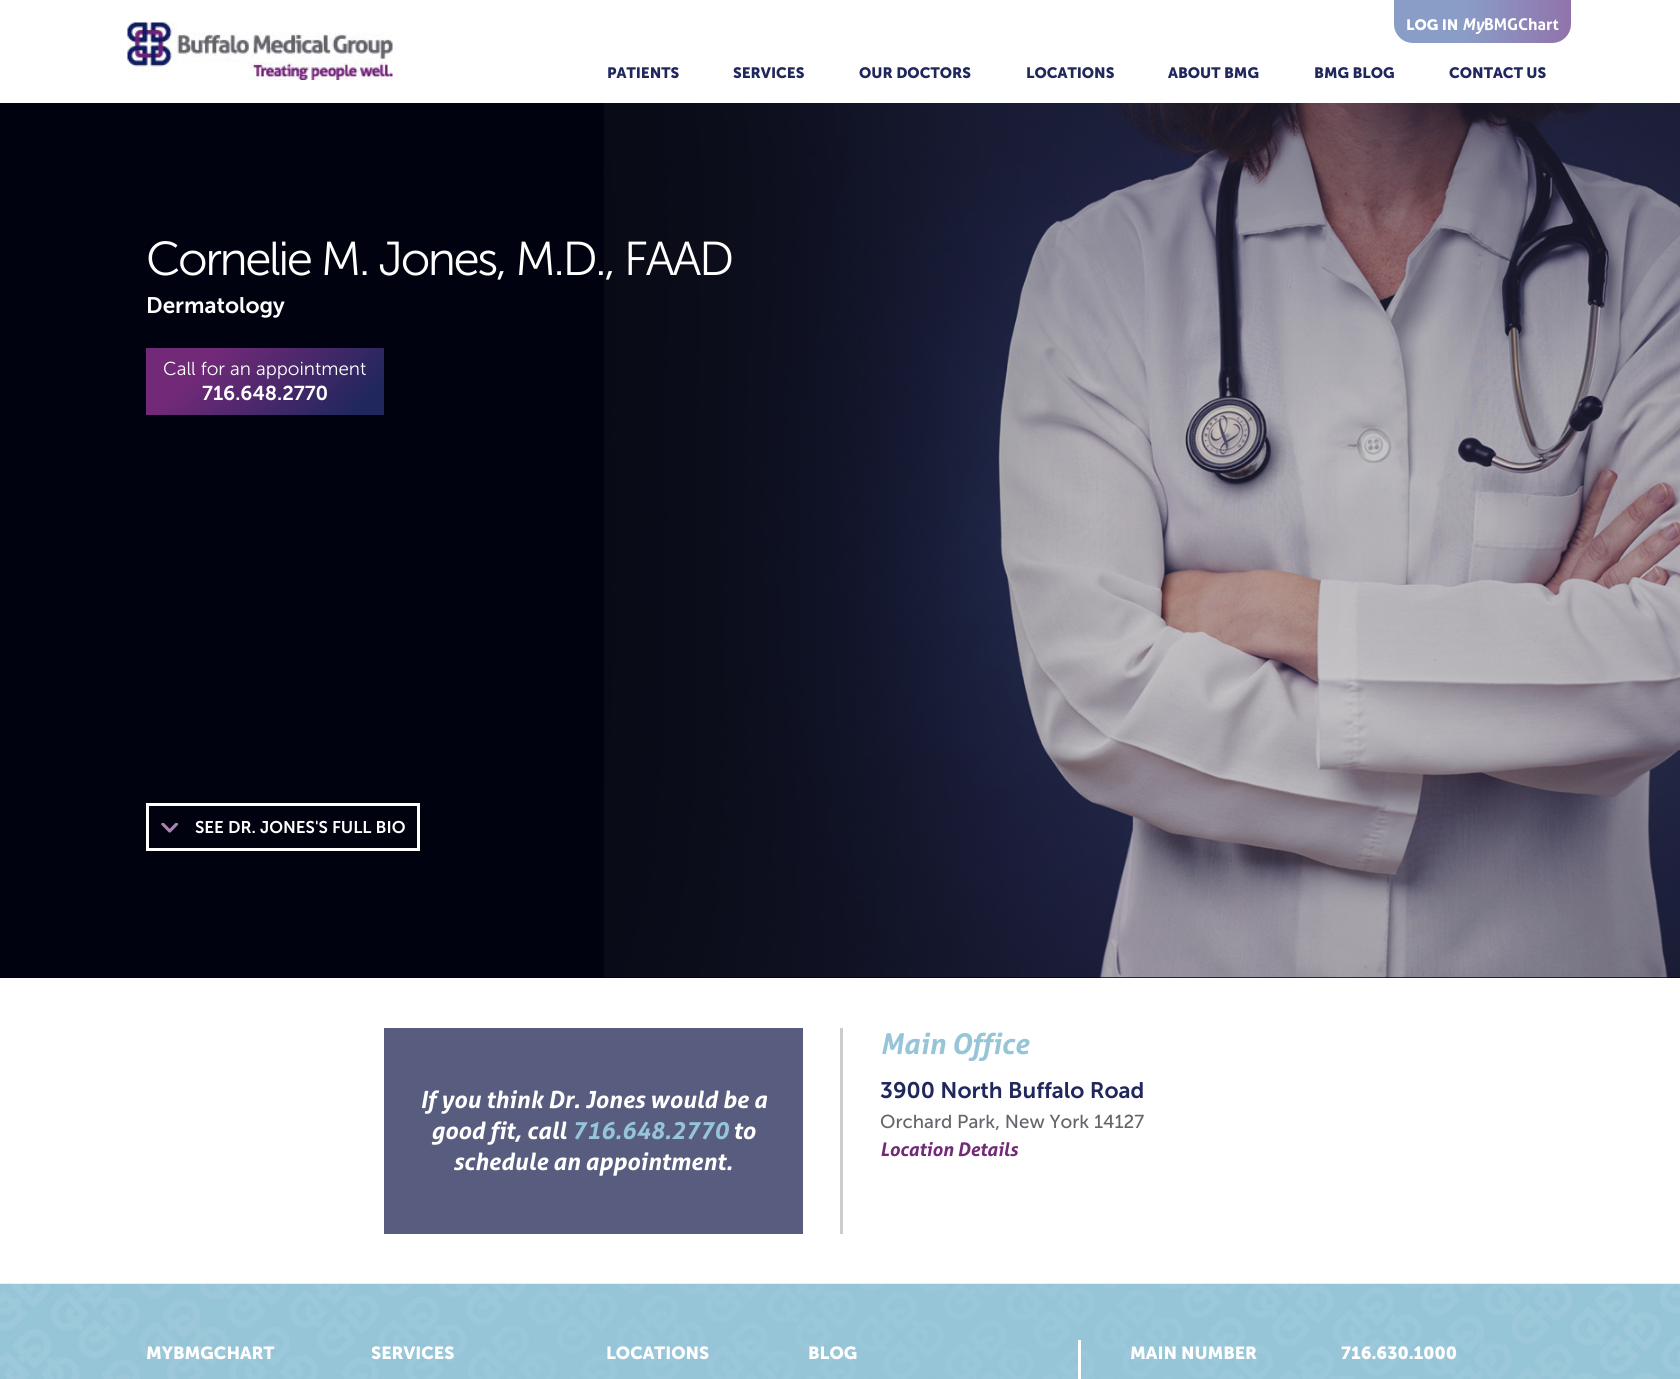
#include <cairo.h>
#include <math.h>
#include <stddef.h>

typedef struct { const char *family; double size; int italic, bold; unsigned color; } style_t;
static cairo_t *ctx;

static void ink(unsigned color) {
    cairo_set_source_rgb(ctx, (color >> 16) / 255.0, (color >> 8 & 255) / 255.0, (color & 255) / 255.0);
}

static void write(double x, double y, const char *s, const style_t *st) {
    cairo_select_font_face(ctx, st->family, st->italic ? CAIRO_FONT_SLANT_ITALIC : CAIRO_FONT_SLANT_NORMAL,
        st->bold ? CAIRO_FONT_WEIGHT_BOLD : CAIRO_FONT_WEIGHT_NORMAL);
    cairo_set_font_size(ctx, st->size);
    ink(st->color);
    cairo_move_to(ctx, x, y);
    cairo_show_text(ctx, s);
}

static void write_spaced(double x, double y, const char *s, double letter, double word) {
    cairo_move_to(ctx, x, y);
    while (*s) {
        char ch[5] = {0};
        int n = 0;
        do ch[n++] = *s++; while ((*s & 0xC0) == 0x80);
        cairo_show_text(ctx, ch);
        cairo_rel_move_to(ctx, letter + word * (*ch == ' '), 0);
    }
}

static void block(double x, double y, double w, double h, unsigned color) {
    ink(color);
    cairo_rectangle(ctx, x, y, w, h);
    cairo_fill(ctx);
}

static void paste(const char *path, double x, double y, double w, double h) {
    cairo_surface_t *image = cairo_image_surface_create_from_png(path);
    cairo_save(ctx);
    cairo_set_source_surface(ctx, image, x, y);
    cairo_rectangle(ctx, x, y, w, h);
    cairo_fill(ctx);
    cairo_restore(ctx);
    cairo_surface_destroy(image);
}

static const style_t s1 = {"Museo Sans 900", 15, 0, 1, 0xffffff};
static const style_t s2 = {"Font", 16.25, 1, 1, 0xffffff};
static const style_t s3 = {"Font", 16.25, 0, 1, 0xffffff};
static const style_t s4 = {"Museo Sans 900", 15, 0, 1, 0x1f275c};
static const style_t s5 = {"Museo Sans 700 SemiBold", 22.5, 0, 0, 0xffffff};
static const style_t s6 = {"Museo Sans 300 Light", 18.75, 0, 0, 0xffffff};
static const style_t s7 = {"Museo Sans 700 SemiBold", 20, 0, 0, 0xffffff};
static const style_t s8 = {"Museo Sans 700 SemiBold", 16.9, 0, 0, 0xffffff};
static const style_t s9 = {"Font", 23.75, 1, 1, 0xffffff};
static const style_t s10 = {"Font", 23.75, 1, 1, 0x96c5d8};
static const style_t s11 = {"Font", 28.75, 1, 1, 0x96c5d8};
static const style_t s12 = {"Museo Sans 700 SemiBold", 22.5, 0, 0, 0x1f275c};
static const style_t s13 = {"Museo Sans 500", 18.75, 0, 0, 0x65646a};
static const style_t s14 = {"Font", 18.75, 1, 1, 0x712978};
static const style_t s15 = {"Museo Sans 900", 17.5, 0, 1, 0xffffff};

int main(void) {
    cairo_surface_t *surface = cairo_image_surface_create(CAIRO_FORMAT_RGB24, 1680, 1379);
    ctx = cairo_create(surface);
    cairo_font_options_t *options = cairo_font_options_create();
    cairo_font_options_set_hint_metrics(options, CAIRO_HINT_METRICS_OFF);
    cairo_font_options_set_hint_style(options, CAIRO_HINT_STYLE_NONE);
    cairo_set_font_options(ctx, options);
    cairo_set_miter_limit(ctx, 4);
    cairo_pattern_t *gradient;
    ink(0xffffff);
    cairo_paint(ctx);
    paste("pic1.png", 127, 22, 266, 58);
    gradient = cairo_pattern_create_linear(1571, 21, 1394, 21);
    cairo_pattern_add_color_stop_rgba(gradient, 0, 0.565, 0.451, 0.667, 1);
    cairo_pattern_add_color_stop_rgba(gradient, 0.6, 0.541, 0.616, 0.78, 1);
    cairo_pattern_add_color_stop_rgba(gradient, 1, 0.541, 0.616, 0.78, 1);
    cairo_set_source(ctx, gradient);
    cairo_pattern_destroy(gradient);
    cairo_new_path(ctx);
    cairo_move_to(ctx, 1394, 0);
    cairo_line_to(ctx, 1571, 0);
    cairo_line_to(ctx, 1571, 24);
    cairo_curve_to(ctx, 1571, 34.5, 1562.5, 43, 1552, 43);
    cairo_line_to(ctx, 1413, 43);
    cairo_curve_to(ctx, 1402.5, 43, 1394, 34.5, 1394, 24);
    cairo_close_path(ctx);
    cairo_fill(ctx);
    write(1406, 30, "LOG IN", &s1);
    write(1462, 30, "My", &s2);
    write(1484, 30, "BMGChart", &s3);
    write(607, 78, "PATIENTS", &s4);
    write(733, 78, "SERVICES", &s4);
    write(859, 78, "OUR DOCTORS", &s4);
    write(1026, 78, "LOCATIONS", &s4);
    write(1168, 78, "ABOUT BMG", &s4);
    write(1314, 78, "BMG BLOG", &s4);
    write(1449, 78, "CONTACT US", &s4);
    block(0, 103, 1680, 875, 0x01020f);
    paste("pic3.png", 603, 103, 1077, 875);
    cairo_select_font_face(ctx, "Museo Sans 300 Light", CAIRO_FONT_SLANT_NORMAL, CAIRO_FONT_WEIGHT_NORMAL);
    cairo_set_font_size(ctx, 47.5);
    ink(0xffffff);
    write_spaced(146, 275, "Cornelie M. Jones, M.D., FAAD", -2.5, 0);
    write(146, 313, "Dermatology", &s5);
    gradient = cairo_pattern_create_linear(189, 305, 341, 458);
    cairo_pattern_add_color_stop_rgba(gradient, 0.25, 0.443, 0.161, 0.471, 1);
    cairo_pattern_add_color_stop_rgba(gradient, 0.9, 0.122, 0.153, 0.361, 1);
    cairo_set_source(ctx, gradient);
    cairo_pattern_destroy(gradient);
    cairo_rectangle(ctx, 146, 348, 238, 67);
    cairo_fill(ctx);
    write(163, 375, "Call for an appointment", &s6);
    write(202, 400, "716.648.2770", &s7);
    cairo_rectangle(ctx, 147.5, 804.5, 271, 45);
    cairo_set_line_width(ctx, 3);
    cairo_stroke(ctx);
    paste("pic2.png", 161, 823, 17, 10);
    write(195, 833, "SEE DR. JONES'S FULL BIO", &s8);
    block(384, 1028, 419, 206, 0x585c7e);
    write(420, 1108, "If you think Dr. Jones would be a", &s9);
    write(431, 1139, "good fit, call", &s9);
    write(572, 1139, "716.648.2770", &s10);
    write(733, 1139, "to", &s9);
    write(453, 1170, "schedule an appointment.", &s9);
    block(840, 1028, 3, 206, 0xcccccc);
    write(880, 1054, "Main Office", &s11);
    write(880, 1098, "3900 North Buffalo Road", &s12);
    write(880, 1128, "Orchard Park, New York 14127", &s13);
    write(880, 1156, "Location Details", &s14);
    paste("pic4.png", 0, 1283, 1680, 96);
    write(146, 1359, "MYBMGCHART", &s15);
    write(371, 1359, "SERVICES", &s15);
    write(606, 1359, "LOCATIONS", &s15);
    write(808, 1359, "BLOG", &s15);
    block(1078, 1340, 3, 39, 0xffffff);
    write(1130, 1359, "MAIN NUMBER", &s15);
    write(1341, 1359, "716.630.1000", &s15);
    cairo_surface_write_to_png(surface, "screenshot.png");
    cairo_font_options_destroy(options);
    cairo_destroy(ctx);
    cairo_surface_destroy(surface);
    return 0;
}
